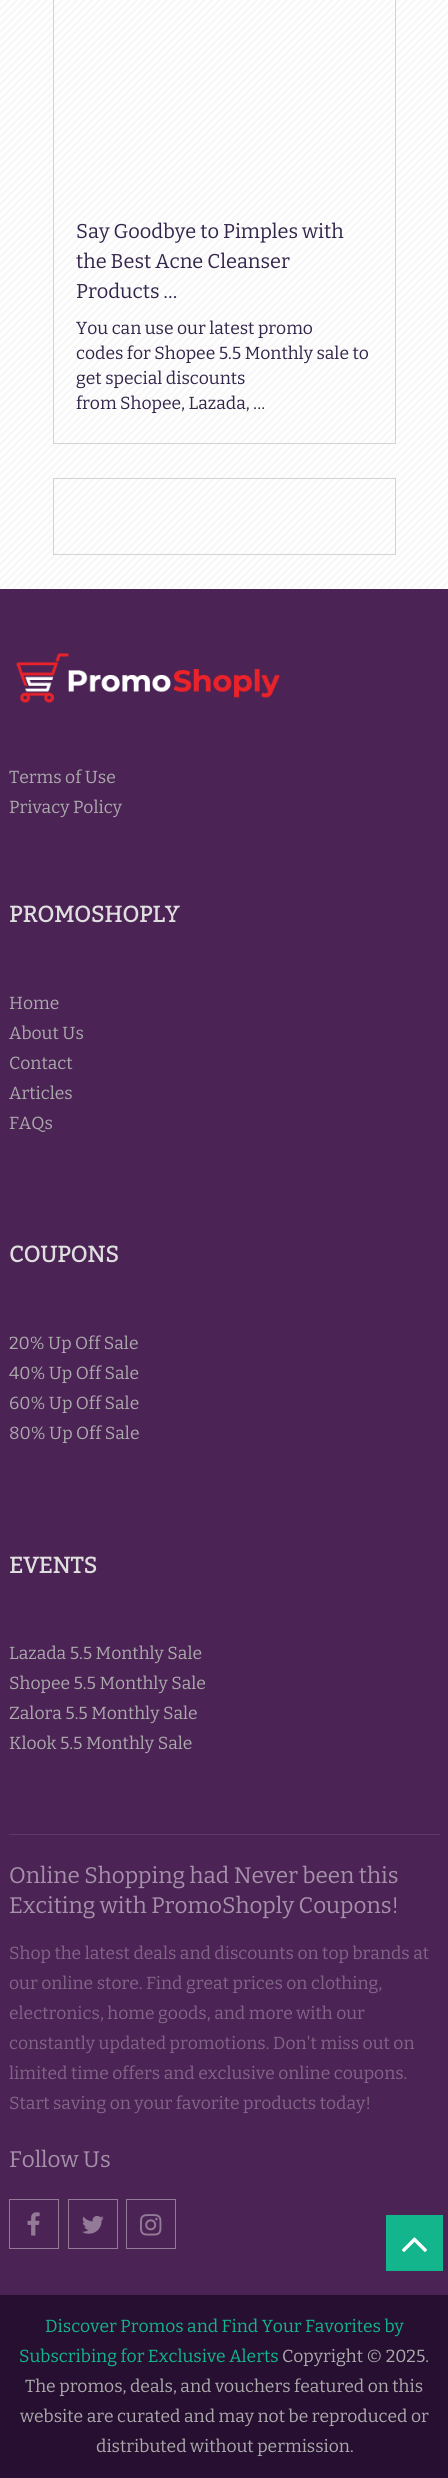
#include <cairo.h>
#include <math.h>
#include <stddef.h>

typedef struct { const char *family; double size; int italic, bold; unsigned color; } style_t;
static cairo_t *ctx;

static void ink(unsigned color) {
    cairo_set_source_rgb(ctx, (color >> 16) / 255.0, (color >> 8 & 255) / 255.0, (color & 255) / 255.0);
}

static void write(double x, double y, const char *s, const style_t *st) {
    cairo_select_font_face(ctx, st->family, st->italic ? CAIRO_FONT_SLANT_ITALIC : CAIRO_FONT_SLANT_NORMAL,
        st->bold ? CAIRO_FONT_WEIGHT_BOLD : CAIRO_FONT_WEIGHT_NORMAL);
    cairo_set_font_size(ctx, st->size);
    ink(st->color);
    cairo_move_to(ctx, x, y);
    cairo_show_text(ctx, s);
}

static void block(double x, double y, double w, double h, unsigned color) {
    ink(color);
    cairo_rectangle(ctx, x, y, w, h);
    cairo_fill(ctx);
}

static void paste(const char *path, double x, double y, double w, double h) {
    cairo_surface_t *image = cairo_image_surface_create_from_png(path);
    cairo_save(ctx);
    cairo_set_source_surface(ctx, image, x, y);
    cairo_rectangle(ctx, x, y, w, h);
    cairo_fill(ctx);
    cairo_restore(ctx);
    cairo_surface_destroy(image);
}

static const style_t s1 = {"Bitter Thin", 20, 0, 0, 0x33244a};
static const style_t s2 = {"Bitter Thin", 17.5, 0, 0, 0x33244a};
static const style_t s3 = {"Bitter Thin", 17.5, 0, 0, 0xaba9ac};
static const style_t s4 = {"Bitter", 22.5, 0, 1, 0xe0dfe0};
static const style_t s5 = {"Bitter Thin", 22.5, 0, 0, 0xa591aa};
static const style_t s6 = {"Bitter Thin", 17.5, 0, 0, 0x816587};
static const style_t s7 = {"Bitter Thin", 17.5, 0, 0, 0x12b58c};

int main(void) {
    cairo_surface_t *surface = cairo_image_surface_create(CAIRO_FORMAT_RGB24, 448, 2478);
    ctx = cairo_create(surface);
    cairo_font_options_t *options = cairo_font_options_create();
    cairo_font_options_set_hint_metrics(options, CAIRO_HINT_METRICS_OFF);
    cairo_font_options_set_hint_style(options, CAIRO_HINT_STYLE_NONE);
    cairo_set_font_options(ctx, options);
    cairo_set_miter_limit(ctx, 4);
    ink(0xffffff);
    cairo_paint(ctx);
    paste("pic1.png", 0, 0, 448, 589);
    cairo_rectangle(ctx, 53.5, -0.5, 342, 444);
    ink(0xd5d1d8);
    cairo_set_line_width(ctx, 1);
    cairo_stroke(ctx);
    write(76, 238, "Say Goodbye to Pimples with", &s1);
    write(76, 268, "the Best Acne Cleanser", &s1);
    write(76, 298, "Products …", &s1);
    write(76, 334, "You can use our latest promo", &s2);
    write(76, 359, "codes for Shopee 5.5 Monthly sale to", &s2);
    write(76, 384, "get special discounts", &s2);
    write(76, 409, "from Shopee, Lazada, …", &s2);
    cairo_rectangle(ctx, 53.5, 478.5, 342, 76);
    ink(0xd5d1d8);
    cairo_stroke(ctx);
    block(0, 589, 448, 1706, 0x4b2354);
    paste("pic2.png", 16, 653, 264, 50);
    write(9, 783, "Terms of Use", &s3);
    write(9, 813, "Privacy Policy", &s3);
    write(9, 922, "PROMOSHOPLY", &s4);
    write(9, 1009, "Home", &s3);
    write(9, 1039, "About Us", &s3);
    write(9, 1069, "Contact", &s3);
    write(9, 1099, "Articles", &s3);
    write(9, 1129, "FAQs", &s3);
    write(9, 1262, "COUPONS", &s4);
    write(9, 1349, "20% Up Off Sale", &s3);
    write(9, 1379, "40% Up Off Sale", &s3);
    write(9, 1409, "60% Up Off Sale", &s3);
    write(9, 1439, "80% Up Off Sale", &s3);
    write(9, 1573, "EVENTS", &s4);
    write(9, 1659, "Lazada 5.5 Monthly Sale", &s3);
    write(9, 1689, "Shopee 5.5 Monthly Sale", &s3);
    write(9, 1719, "Zalora 5.5 Monthly Sale", &s3);
    write(9, 1749, "Klook 5.5 Monthly Sale", &s3);
    block(9, 1834, 431, 1, 0x5d3965);
    write(9, 1883, "Online Shopping had Never been this", &s5);
    write(9, 1913, "Exciting with PromoShoply Coupons!", &s5);
    write(9, 1959, "Shop the latest deals and discounts on top brands at", &s6);
    write(9, 1989, "our online store. Find great prices on clothing,", &s6);
    write(9, 2019, "electronics, home goods, and more with our", &s6);
    write(9, 2049, "constantly updated promotions. Don't miss out on", &s6);
    write(9, 2079, "limited time offers and exclusive online coupons.", &s6);
    write(9, 2109, "Start saving on your favorite products today!", &s6);
    write(9, 2167, "Follow Us", &s5);
    cairo_rectangle(ctx, 9.5, 2199.5, 49, 49);
    ink(0x937b98);
    cairo_stroke(ctx);
    paste("pic3.png", 27, 2212, 13, 24);
    cairo_rectangle(ctx, 68.5, 2199.5, 49, 49);
    cairo_stroke(ctx);
    paste("pic4.png", 82, 2215, 22, 19);
    cairo_rectangle(ctx, 126.5, 2199.5, 49, 49);
    cairo_stroke(ctx);
    paste("pic5.png", 140, 2214, 22, 22);
    block(0, 2295, 448, 183, 0x260f30);
    write(45, 2332, "Discover Promos and Find Your Favorites by", &s7);
    write(19, 2362, "Subscribing for Exclusive Alerts", &s7);
    write(282, 2362, "Copyright © 2025.", &s3);
    write(25, 2392, "The promos, deals, and vouchers featured on this", &s3);
    write(20, 2422, "website are curated and may not be reproduced or", &s3);
    write(96, 2452, "distributed without permission.", &s3);
    block(386, 2215, 57, 56, 0x12b58c);
    paste("pic6.png", 402, 2237, 25, 15);
    cairo_surface_write_to_png(surface, "screenshot.png");
    cairo_font_options_destroy(options);
    cairo_destroy(ctx);
    cairo_surface_destroy(surface);
    return 0;
}
